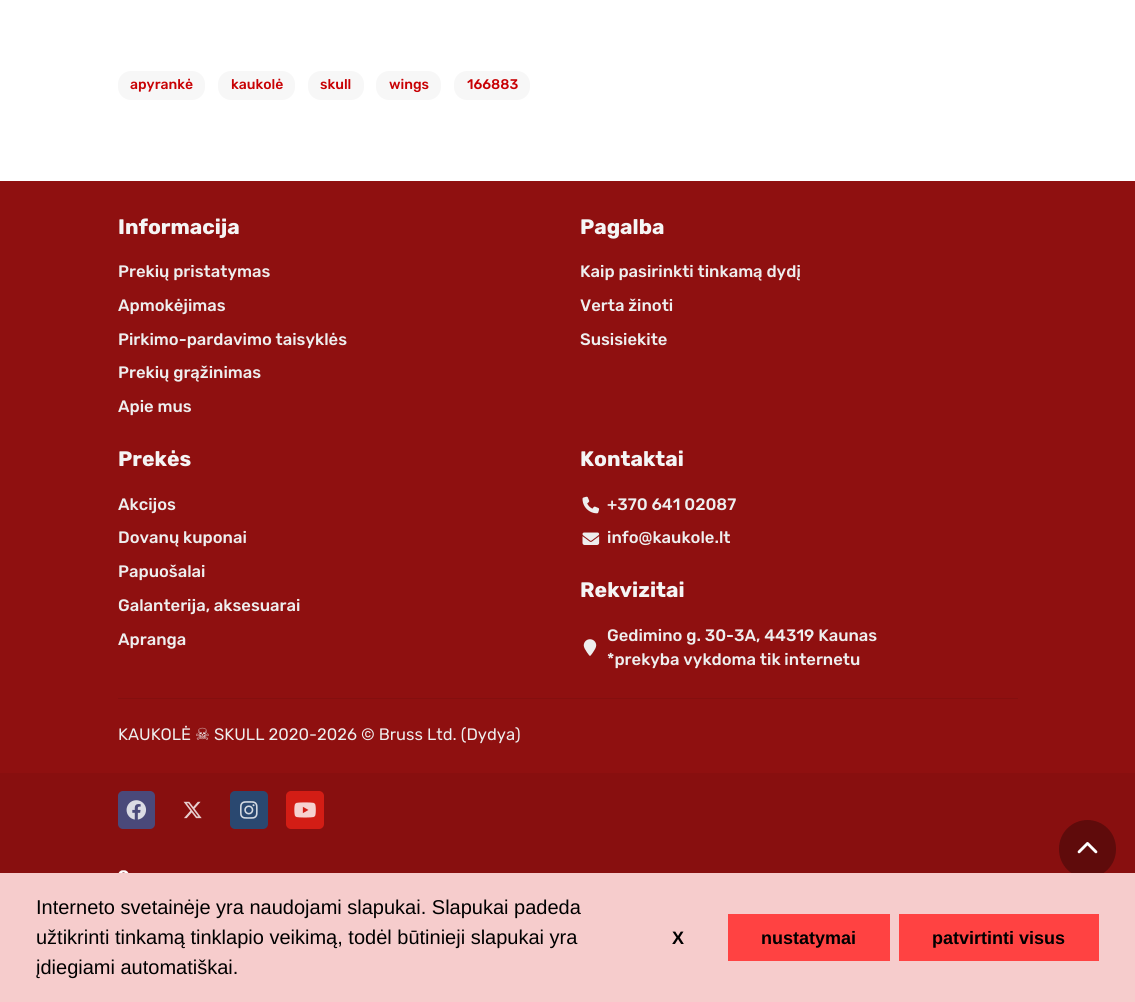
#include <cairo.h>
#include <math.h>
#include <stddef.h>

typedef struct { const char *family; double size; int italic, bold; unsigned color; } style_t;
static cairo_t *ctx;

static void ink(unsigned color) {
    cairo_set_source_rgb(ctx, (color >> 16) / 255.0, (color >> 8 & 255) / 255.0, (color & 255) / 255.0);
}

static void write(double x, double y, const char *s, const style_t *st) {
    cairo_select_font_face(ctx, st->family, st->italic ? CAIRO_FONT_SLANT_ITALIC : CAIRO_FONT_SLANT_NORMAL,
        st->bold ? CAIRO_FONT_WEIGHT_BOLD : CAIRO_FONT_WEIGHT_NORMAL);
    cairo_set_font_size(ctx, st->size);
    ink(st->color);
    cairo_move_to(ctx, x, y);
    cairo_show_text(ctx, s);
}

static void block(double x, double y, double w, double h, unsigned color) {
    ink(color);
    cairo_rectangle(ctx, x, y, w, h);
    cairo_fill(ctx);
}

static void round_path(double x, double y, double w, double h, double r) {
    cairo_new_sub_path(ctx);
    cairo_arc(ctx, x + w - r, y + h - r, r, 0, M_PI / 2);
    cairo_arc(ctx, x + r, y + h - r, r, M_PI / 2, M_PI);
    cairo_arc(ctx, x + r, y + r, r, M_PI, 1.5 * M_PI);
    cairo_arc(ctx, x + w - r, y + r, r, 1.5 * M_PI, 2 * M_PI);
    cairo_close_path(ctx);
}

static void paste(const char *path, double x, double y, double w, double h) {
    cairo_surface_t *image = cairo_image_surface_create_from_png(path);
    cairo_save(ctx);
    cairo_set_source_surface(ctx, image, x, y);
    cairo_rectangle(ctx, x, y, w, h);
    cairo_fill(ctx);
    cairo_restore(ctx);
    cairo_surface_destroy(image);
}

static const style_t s1 = {"Rubik Medium", 14, 0, 0, 0xc80104};
static const style_t s2 = {"Rubik", 21, 0, 1, 0xf5f5f5};
static const style_t s3 = {"Rubik Medium", 16.6, 0, 0, 0xeeeeee};
static const style_t s4 = {"Rubik", 16.6, 0, 0, 0xeeeeee};
static const style_t s5 = {"DejaVu Sans", 16.6, 0, 0, 0xeeeeee};
static const style_t s6 = {"Liberation Sans", 20, 0, 0, 0x000000};
static const style_t s7 = {"Liberation Sans", 18, 0, 1, 0x000000};

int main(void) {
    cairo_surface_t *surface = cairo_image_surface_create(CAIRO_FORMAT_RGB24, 1135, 1002);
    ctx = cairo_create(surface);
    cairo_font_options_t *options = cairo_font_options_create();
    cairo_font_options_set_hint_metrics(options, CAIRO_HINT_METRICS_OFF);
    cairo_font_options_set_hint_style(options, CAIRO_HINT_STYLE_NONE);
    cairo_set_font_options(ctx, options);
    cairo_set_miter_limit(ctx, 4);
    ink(0xffffff);
    cairo_paint(ctx);
    ink(0xf7f7f7);
    round_path(118, 71, 87, 29, 13);
    cairo_fill(ctx);
    write(130, 89, "apyrankė", &s1);
    ink(0xf7f7f7);
    round_path(218, 71, 77, 29, 13);
    cairo_fill(ctx);
    write(231, 89, "kaukolė", &s1);
    ink(0xf7f7f7);
    round_path(308, 71, 56, 29, 13);
    cairo_fill(ctx);
    write(320, 89, "skull", &s1);
    ink(0xf7f7f7);
    round_path(376, 71, 65, 29, 13);
    cairo_fill(ctx);
    write(389, 89, "wings", &s1);
    ink(0xf7f7f7);
    round_path(454, 71, 76, 29, 13);
    cairo_fill(ctx);
    write(467, 89, "166883", &s1);
    block(0, 181, 1135, 592, 0x8f1010);
    write(118, 234, "Informacija", &s2);
    write(118, 277, "Prekių pristatymas", &s3);
    write(118, 311, "Apmokėjimas", &s3);
    write(118, 345, "Pirkimo-pardavimo taisyklės", &s3);
    write(118, 378, "Prekių grąžinimas", &s3);
    write(118, 412, "Apie mus", &s3);
    write(580, 234, "Pagalba", &s2);
    write(580, 277, "Kaip pasirinkti tinkamą dydį", &s3);
    write(580, 311, "Verta žinoti", &s3);
    write(580, 345, "Susisiekite", &s3);
    write(118, 466, "Prekės", &s2);
    write(118, 510, "Akcijos", &s3);
    write(118, 543, "Dovanų kuponai", &s3);
    write(118, 577, "Papuošalai", &s3);
    write(118, 611, "Galanterija, aksesuarai", &s3);
    write(118, 645, "Apranga", &s3);
    write(580, 466, "Kontaktai", &s2);
    paste("pic1.png", 582, 496, 18, 18);
    write(607, 510, "+370 641 02087", &s3);
    paste("pic2.png", 582, 532, 18, 13);
    write(607, 543, "info@kaukole.lt", &s3);
    write(580, 597, "Rekvizitai", &s2);
    paste("pic3.png", 583, 639, 14, 17);
    write(607, 641, "Gedimino g. 30-3A, 44319 Kaunas", &s3);
    write(607, 665, "*prekyba vykdoma tik internetu", &s3);
    block(118, 698, 900, 1, 0x840f0f);
    write(118, 740, "KAUKOLĖ", &s4);
    write(195, 740, "☠", &s5);
    write(214, 740, "SKULL 2020-2026 © Bruss Ltd. (Dydya)", &s4);
    block(0, 773, 1135, 100, 0x880f0f);
    ink(0x4a497a);
    round_path(118, 791, 37, 38, 5);
    cairo_fill(ctx);
    paste("pic4.png", 126, 800, 21, 20);
    paste("pic5.png", 183, 801, 19, 18);
    ink(0x2a4870);
    round_path(230, 791, 38, 38, 5);
    cairo_fill(ctx);
    paste("pic6.png", 240, 801, 18, 18);
    ink(0xd31d15);
    round_path(286, 791, 38, 38, 5);
    cairo_fill(ctx);
    paste("pic7.png", 294, 802, 22, 16);
    paste("pic8.png", 118, 870, 11, 3);
    ink(0x5f0b0b);
    round_path(1059, 820, 57, 58, 28.5);
    cairo_fill(ctx);
    paste("pic9.png", 1077, 842, 21, 12);
    block(0, 873, 1135, 129, 0xf6cccc);
    write(36, 914, "Interneto svetainėje yra naudojami slapukai. Slapukai padeda", &s6);
    write(36, 944, "užtikrinti tinkamą tinklapio veikimą, todėl būtinieji slapukai yra", &s6);
    write(36, 974, "įdiegiami automatiškai.", &s6);
    write(672, 944, "X", &s7);
    block(728, 914, 162, 47, 0xff4242);
    write(761, 944, "nustatymai", &s7);
    block(899, 914, 200, 47, 0xff4242);
    write(932, 944, "patvirtinti visus", &s7);
    cairo_surface_write_to_png(surface, "screenshot.png");
    cairo_font_options_destroy(options);
    cairo_destroy(ctx);
    cairo_surface_destroy(surface);
    return 0;
}
